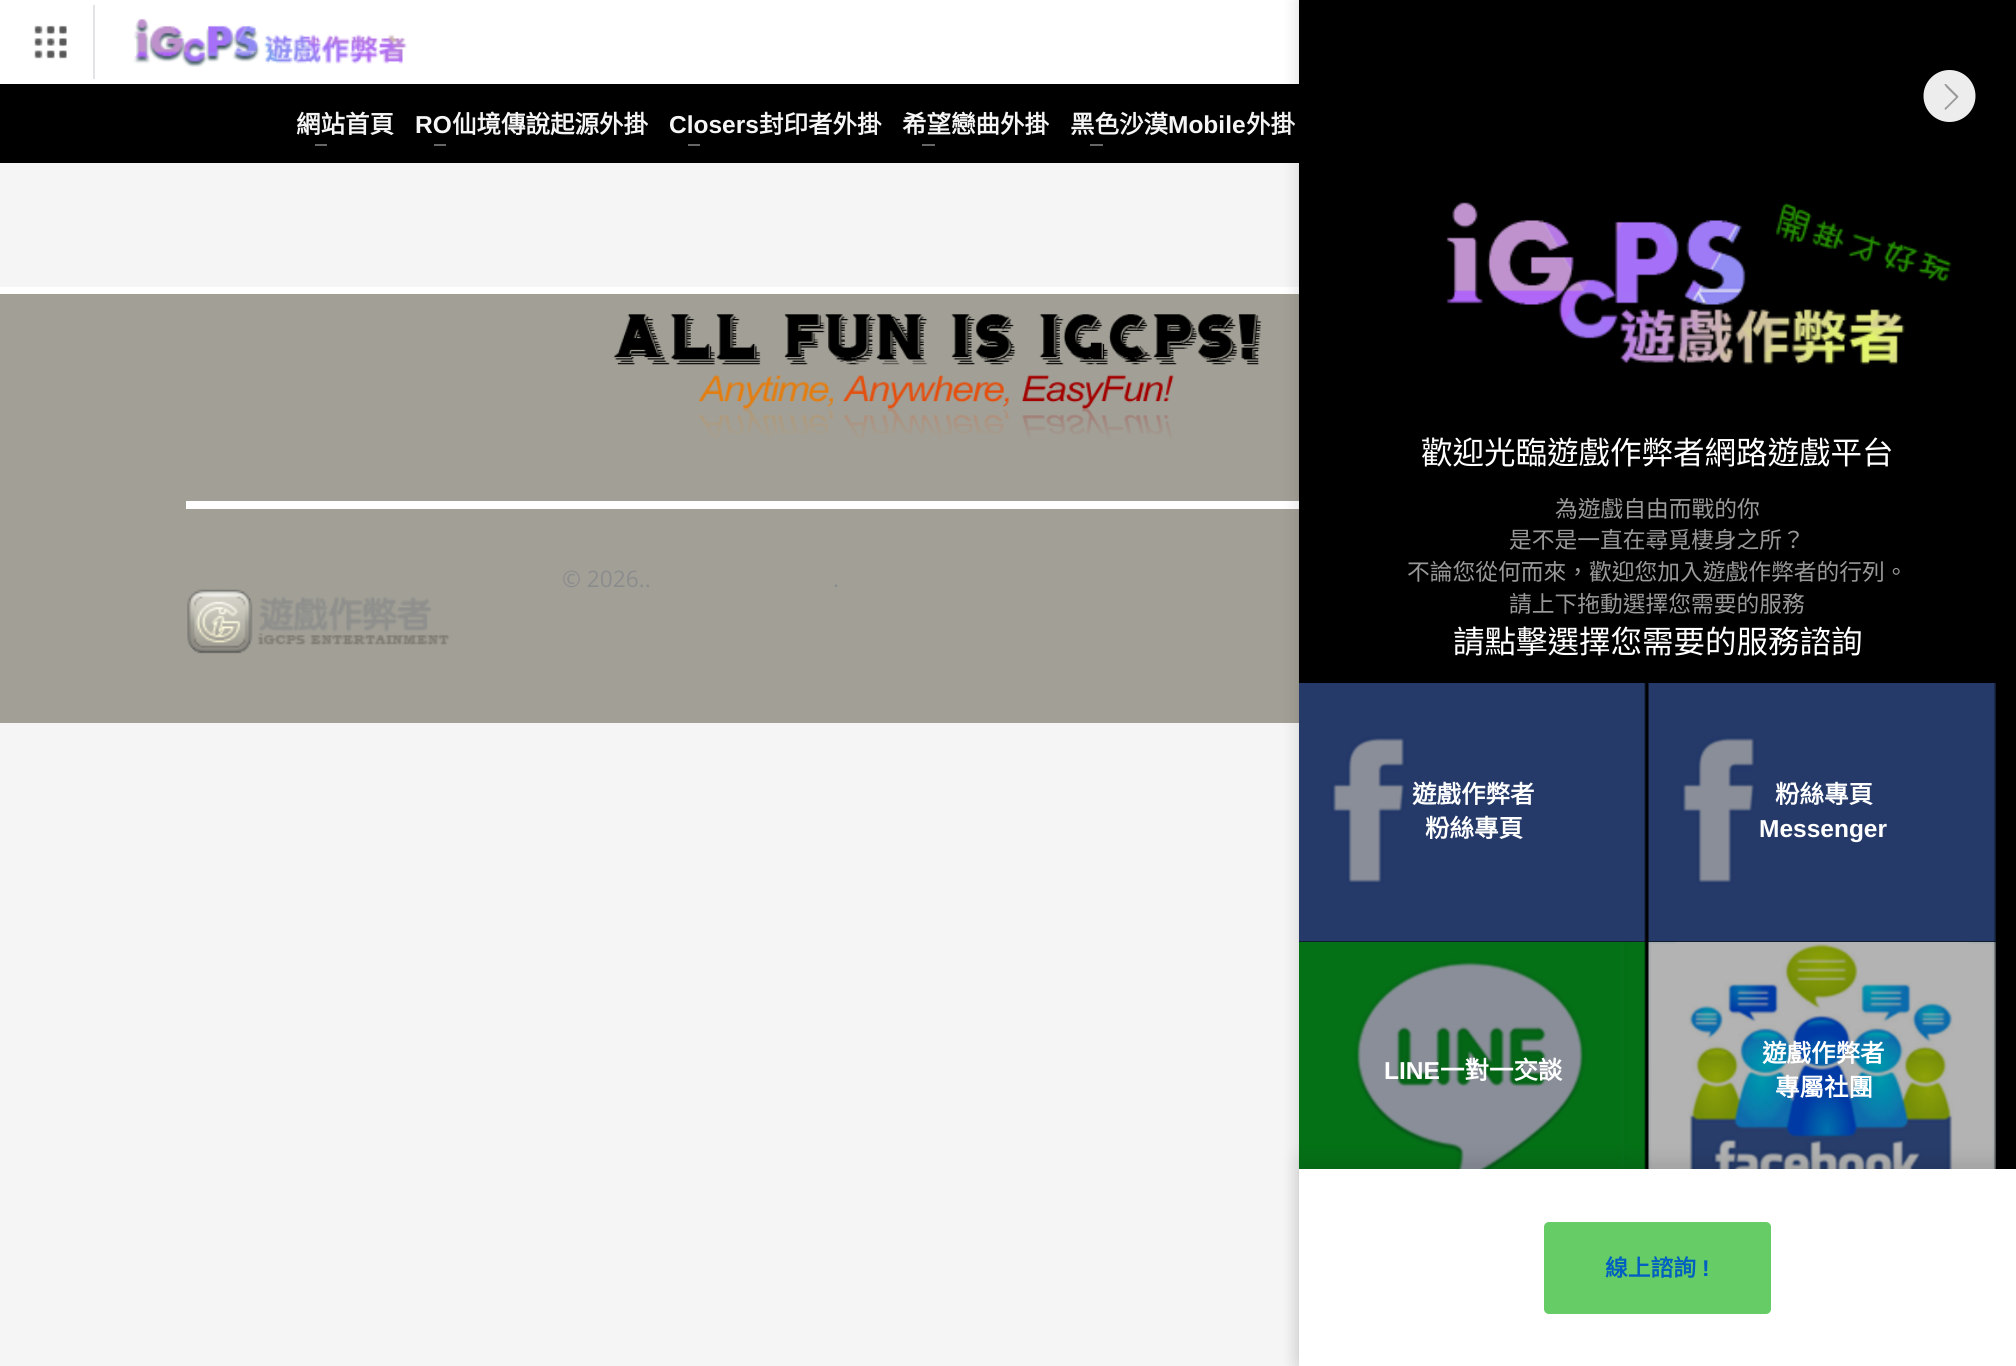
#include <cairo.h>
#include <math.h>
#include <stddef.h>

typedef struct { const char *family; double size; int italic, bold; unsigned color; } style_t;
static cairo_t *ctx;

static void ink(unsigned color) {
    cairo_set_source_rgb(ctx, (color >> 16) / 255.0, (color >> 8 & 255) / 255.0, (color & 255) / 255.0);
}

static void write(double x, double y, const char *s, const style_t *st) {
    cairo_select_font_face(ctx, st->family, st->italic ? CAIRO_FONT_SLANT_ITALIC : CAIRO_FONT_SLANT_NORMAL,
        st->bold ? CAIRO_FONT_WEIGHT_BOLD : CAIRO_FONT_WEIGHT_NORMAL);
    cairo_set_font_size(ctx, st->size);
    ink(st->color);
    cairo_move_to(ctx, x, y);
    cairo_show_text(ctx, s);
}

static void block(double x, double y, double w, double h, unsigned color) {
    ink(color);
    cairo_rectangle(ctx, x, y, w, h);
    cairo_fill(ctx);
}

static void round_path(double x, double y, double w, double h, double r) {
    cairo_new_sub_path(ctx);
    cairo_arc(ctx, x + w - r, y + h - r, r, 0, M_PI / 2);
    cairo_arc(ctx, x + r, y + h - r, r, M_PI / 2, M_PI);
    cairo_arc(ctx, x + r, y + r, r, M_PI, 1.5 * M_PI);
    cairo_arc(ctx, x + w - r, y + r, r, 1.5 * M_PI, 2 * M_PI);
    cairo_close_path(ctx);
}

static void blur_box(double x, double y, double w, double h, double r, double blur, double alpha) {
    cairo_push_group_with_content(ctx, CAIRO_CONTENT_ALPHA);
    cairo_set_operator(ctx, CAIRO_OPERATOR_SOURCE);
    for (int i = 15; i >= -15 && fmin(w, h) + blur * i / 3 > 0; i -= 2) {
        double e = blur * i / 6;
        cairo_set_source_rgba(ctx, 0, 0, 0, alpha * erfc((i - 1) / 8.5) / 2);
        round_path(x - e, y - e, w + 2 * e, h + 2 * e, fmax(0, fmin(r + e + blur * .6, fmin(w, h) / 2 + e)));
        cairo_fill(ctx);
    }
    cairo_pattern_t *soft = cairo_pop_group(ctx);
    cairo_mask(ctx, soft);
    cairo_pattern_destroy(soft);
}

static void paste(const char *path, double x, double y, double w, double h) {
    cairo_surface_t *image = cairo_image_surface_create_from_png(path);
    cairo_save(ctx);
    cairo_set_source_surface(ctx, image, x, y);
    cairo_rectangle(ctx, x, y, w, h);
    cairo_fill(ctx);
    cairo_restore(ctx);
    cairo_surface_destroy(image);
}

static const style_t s1 = {"Noto Sans CJK TC", 24.5, 0, 1, 0xf5f5f5};
static const style_t s2 = {"Liberation Sans", 24.5, 0, 1, 0xf5f5f5};
static const style_t s3 = {"Open Sans", 22.75, 0, 0, 0x8b8c8d};
static const style_t s4 = {"Noto Sans CJK TC", 31.5, 0, 0, 0xffffff};
static const style_t s5 = {"Noto Sans CJK TC", 22.75, 0, 0, 0x999999};
static const style_t s6 = {"Noto Sans CJK TC", 24.5, 0, 1, 0xffffff};
static const style_t s7 = {"Liberation Sans", 24.5, 0, 1, 0xffffff};
static const style_t s8 = {"Noto Sans CJK TC", 22.75, 0, 1, 0x005fc0};
static const style_t s9 = {"Liberation Sans", 22.75, 0, 1, 0x005fc0};

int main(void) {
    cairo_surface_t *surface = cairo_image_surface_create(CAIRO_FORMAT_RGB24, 2016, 1366);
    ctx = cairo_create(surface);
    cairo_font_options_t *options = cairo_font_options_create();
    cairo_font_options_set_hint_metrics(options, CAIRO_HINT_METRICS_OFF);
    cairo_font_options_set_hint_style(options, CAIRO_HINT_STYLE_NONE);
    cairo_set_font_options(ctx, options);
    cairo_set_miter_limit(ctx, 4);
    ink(0xf5f5f5);
    cairo_paint(ctx);
    block(0, 0, 1299, 84, 0xffffff);
    block(93, 5, 2, 74, 0xe1e3e6);
    paste("pic1.png", 34, 25, 33, 34);
    paste("pic2.png", 133, 18, 274, 49);
    block(0, 84, 1299, 79, 0x000000);
    write(296, 133, "網站首頁", &s1);
    block(315, 144, 12, 2, 0x666666);
    write(415, 133, "RO", &s2);
    write(452, 133, "仙境傳說起源外掛", &s1);
    block(434, 144, 12, 2, 0x666666);
    write(669, 133, "Closers", &s2);
    write(759, 133, "封印者外掛", &s1);
    block(688, 144, 12, 2, 0x666666);
    write(902, 133, "希望戀曲外掛", &s1);
    block(922, 144, 13, 2, 0x666666);
    write(1070, 133, "黑色沙漠", &s1);
    write(1168, 133, "Mobile", &s2);
    write(1246, 133, "外掛", &s1);
    block(1090, 144, 13, 2, 0x666666);
    block(0, 294, 1299, 429, 0xa2a096);
    block(0, 287, 1299, 7, 0xffffff);
    paste("pic3.png", 613, 314, 649, 125);
    block(186, 501, 1113, 8, 0xffffff);
    write(562, 587, "© 2026..", &s3);
    write(833, 587, ".", &s3);
    paste("pic4.png", 187, 589, 263, 65);
    ink(0x000000);
    blur_box(1299, 0, 717, 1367, 0, 9, 0.15);
    block(1299, 0, 717, 1169, 0x000000);
    ink(0xededed);
    cairo_arc(ctx, 1949.5, 96, 26, 0, 2 * M_PI);
    cairo_fill(ctx);
    ink(0x999999);
    cairo_set_fill_rule(ctx, CAIRO_FILL_RULE_EVEN_ODD);
    cairo_new_path(ctx);
    cairo_move_to(ctx, 1946, 109.5);
    cairo_curve_to(ctx, 1945.5, 110, 1945, 110, 1945, 109.5);
    cairo_curve_to(ctx, 1943.5, 108.5, 1946.5, 106.5, 1946.5, 106.5);
    cairo_line_to(ctx, 1956, 97);
    cairo_line_to(ctx, 1946.5, 87.5);
    cairo_curve_to(ctx, 1945.5, 86, 1943.5, 84, 1945, 84);
    cairo_line_to(ctx, 1946, 84);
    cairo_line_to(ctx, 1956, 94);
    cairo_curve_to(ctx, 1956.5, 94.5, 1959.5, 96.5, 1958, 97.5);
    cairo_close_path(ctx);
    cairo_fill(ctx);
    paste("pic5.png", 1446, 202, 506, 163);
    write(1421, 464, "歡迎光臨遊戲作弊者網路遊戲平台", &s4);
    write(1555, 517, "為遊戲自由而戰的你", &s5);
    write(1509, 548, "是不是一直在尋覓棲身之所？", &s5);
    write(1407, 580, "不論您從何而來，歡迎您加入遊戲作弊者的行列。", &s5);
    write(1509, 612, "請上下拖動選擇您需要的服務", &s5);
    write(1453, 653, "請點擊選擇您需要的服務諮詢", &s4);
    paste("pic6.png", 1299, 683, 347, 259);
    write(1412, 803, "遊戲作弊者", &s6);
    write(1425, 837, "粉絲專頁", &s6);
    paste("pic7.png", 1648, 683, 348, 259);
    write(1775, 803, "粉絲專頁", &s6);
    write(1759, 837, "Messenger", &s7);
    paste("pic8.png", 1299, 942, 347, 227);
    write(1384, 1079, "LINE", &s7);
    write(1440, 1079, "一對一交談", &s6);
    paste("pic9.png", 1648, 942, 348, 227);
    write(1762, 1062, "遊戲作弊者", &s6);
    write(1775, 1096, "專屬社團", &s6);
    ink(0x000000);
    blur_box(1299, 1160, 717, 198, 0, 9, 0.1);
    block(1299, 1169, 717, 197, 0xffffff);
    ink(0x66cc66);
    round_path(1544, 1222, 227, 92, 5);
    cairo_fill(ctx);
    write(1605, 1276, "線上諮詢", &s8);
    write(1702, 1276, "!", &s9);
    cairo_surface_write_to_png(surface, "screenshot.png");
    cairo_font_options_destroy(options);
    cairo_destroy(ctx);
    cairo_surface_destroy(surface);
    return 0;
}
